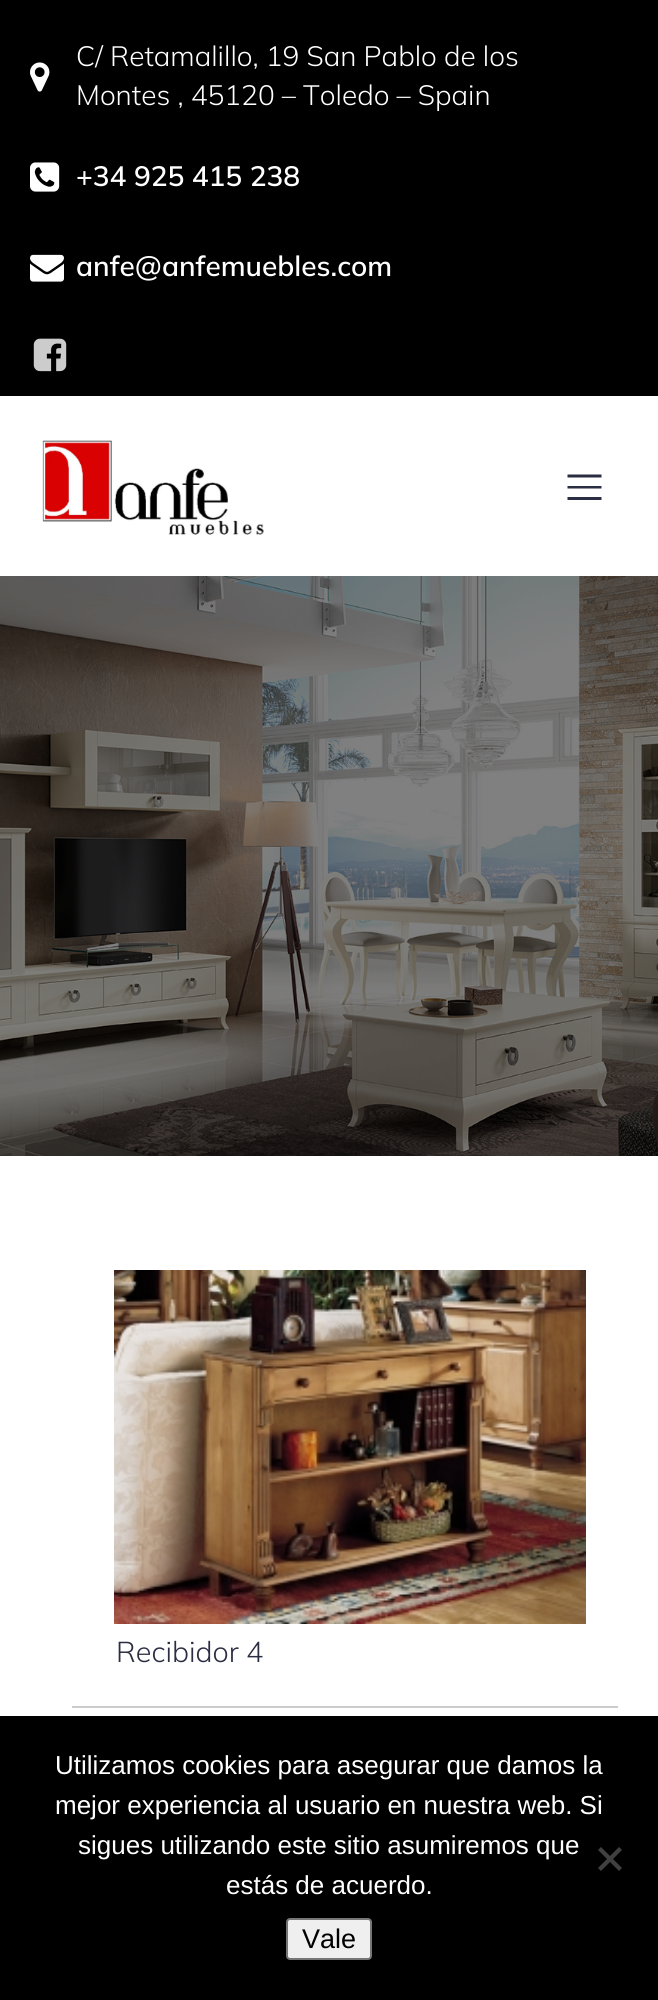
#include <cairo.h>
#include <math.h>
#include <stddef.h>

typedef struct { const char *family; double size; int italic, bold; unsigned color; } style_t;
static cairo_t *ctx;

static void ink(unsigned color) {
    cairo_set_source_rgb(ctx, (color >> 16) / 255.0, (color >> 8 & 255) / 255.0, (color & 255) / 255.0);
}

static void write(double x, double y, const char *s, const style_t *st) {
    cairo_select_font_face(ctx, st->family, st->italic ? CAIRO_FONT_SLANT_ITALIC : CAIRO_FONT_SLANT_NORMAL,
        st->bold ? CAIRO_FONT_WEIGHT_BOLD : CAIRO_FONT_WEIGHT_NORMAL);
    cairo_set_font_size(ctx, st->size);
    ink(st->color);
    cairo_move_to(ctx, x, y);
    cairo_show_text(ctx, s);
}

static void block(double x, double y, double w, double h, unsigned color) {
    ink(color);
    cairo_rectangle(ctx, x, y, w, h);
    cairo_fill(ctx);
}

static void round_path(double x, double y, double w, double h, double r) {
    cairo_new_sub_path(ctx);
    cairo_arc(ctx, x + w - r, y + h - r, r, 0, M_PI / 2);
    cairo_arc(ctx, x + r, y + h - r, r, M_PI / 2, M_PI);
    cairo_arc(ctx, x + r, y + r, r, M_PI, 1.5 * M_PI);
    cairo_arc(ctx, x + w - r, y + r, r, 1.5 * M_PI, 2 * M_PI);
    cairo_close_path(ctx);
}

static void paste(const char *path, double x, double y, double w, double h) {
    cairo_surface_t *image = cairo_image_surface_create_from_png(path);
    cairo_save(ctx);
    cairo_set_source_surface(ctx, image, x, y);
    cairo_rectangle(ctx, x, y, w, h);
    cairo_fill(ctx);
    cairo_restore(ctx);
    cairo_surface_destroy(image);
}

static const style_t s1 = {"Mulish Light", 28, 0, 0, 0xffffff};
static const style_t s2 = {"Mulish SemiBold", 28, 0, 0, 0xffffff};
static const style_t s3 = {"Mulish Light", 28.75, 0, 0, 0x2b2d42};
static const style_t s4 = {"Liberation Sans", 26, 0, 0, 0xffffff};
static const style_t s5 = {"Liberation Sans", 27, 0, 0, 0x000000};

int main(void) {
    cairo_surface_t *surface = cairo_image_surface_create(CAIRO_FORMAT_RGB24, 658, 2000);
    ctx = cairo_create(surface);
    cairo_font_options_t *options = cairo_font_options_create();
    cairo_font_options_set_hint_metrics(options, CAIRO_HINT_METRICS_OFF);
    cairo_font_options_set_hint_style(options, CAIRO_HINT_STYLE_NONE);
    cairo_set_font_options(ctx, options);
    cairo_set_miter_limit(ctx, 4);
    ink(0xffffff);
    cairo_paint(ctx);
    block(0, 0, 658, 396, 0x000000);
    paste("pic1.png", 30, 62, 20, 30);
    write(76, 66, "C/ Retamalillo, 19 San Pablo de los", &s1);
    write(76, 105, "Montes , 45120 – Toledo – Spain", &s1);
    paste("pic2.png", 30, 162, 30, 30);
    write(76, 186, "+34 925 415 238", &s2);
    paste("pic3.png", 30, 254, 34, 28);
    write(76, 276, "anfe@anfemuebles.com", &s2);
    paste("pic4.png", 33, 338, 34, 34);
    paste("pic5.png", 42, 440, 222, 95);
    ink(0x2b2d42);
    cairo_new_path(ctx);
    cairo_move_to(ctx, 567.5, 474.5);
    cairo_line_to(ctx, 601.5, 474.5);
    cairo_line_to(ctx, 601.5, 477.5);
    cairo_line_to(ctx, 567.5, 477.5);
    cairo_close_path(ctx);
    cairo_move_to(ctx, 567.5, 486);
    cairo_line_to(ctx, 601.5, 486);
    cairo_line_to(ctx, 601.5, 488.5);
    cairo_line_to(ctx, 567.5, 488.5);
    cairo_close_path(ctx);
    cairo_move_to(ctx, 567.5, 497);
    cairo_line_to(ctx, 601.5, 497);
    cairo_line_to(ctx, 601.5, 500);
    cairo_line_to(ctx, 567.5, 500);
    cairo_close_path(ctx);
    cairo_fill(ctx);
    paste("pic6.png", 0, 576, 658, 580);
    block(72, 1706, 546, 2, 0xcccccc);
    paste("pic7.png", 114, 1270, 472, 354);
    write(116, 1662, "Recibidor 4", &s3);
    block(0, 1716, 658, 284, 0x000000);
    write(55, 1774, "Utilizamos cookies para asegurar que damos la", &s4);
    write(55, 1814, "mejor experiencia al usuario en nuestra web. Si", &s4);
    write(78, 1854, "sigues utilizando este sitio asumiremos que", &s4);
    write(226, 1894, "estás de acuerdo.", &s4);
    ink(0x404040);
    cairo_new_path(ctx);
    cairo_move_to(ctx, 619, 1847);
    cairo_line_to(ctx, 622, 1850);
    cairo_line_to(ctx, 601, 1871);
    cairo_line_to(ctx, 598, 1868);
    cairo_close_path(ctx);
    cairo_fill(ctx);
    cairo_new_path(ctx);
    cairo_move_to(ctx, 598, 1850);
    cairo_line_to(ctx, 601, 1847);
    cairo_line_to(ctx, 622, 1868);
    cairo_line_to(ctx, 619, 1871);
    cairo_close_path(ctx);
    cairo_fill(ctx);
    ink(0xefefef);
    round_path(287, 1919, 84, 40, 3);
    cairo_fill_preserve(ctx);
    ink(0x767676);
    cairo_stroke(ctx);
    write(302, 1948, "Vale", &s5);
    cairo_surface_write_to_png(surface, "screenshot.png");
    cairo_font_options_destroy(options);
    cairo_destroy(ctx);
    cairo_surface_destroy(surface);
    return 0;
}
